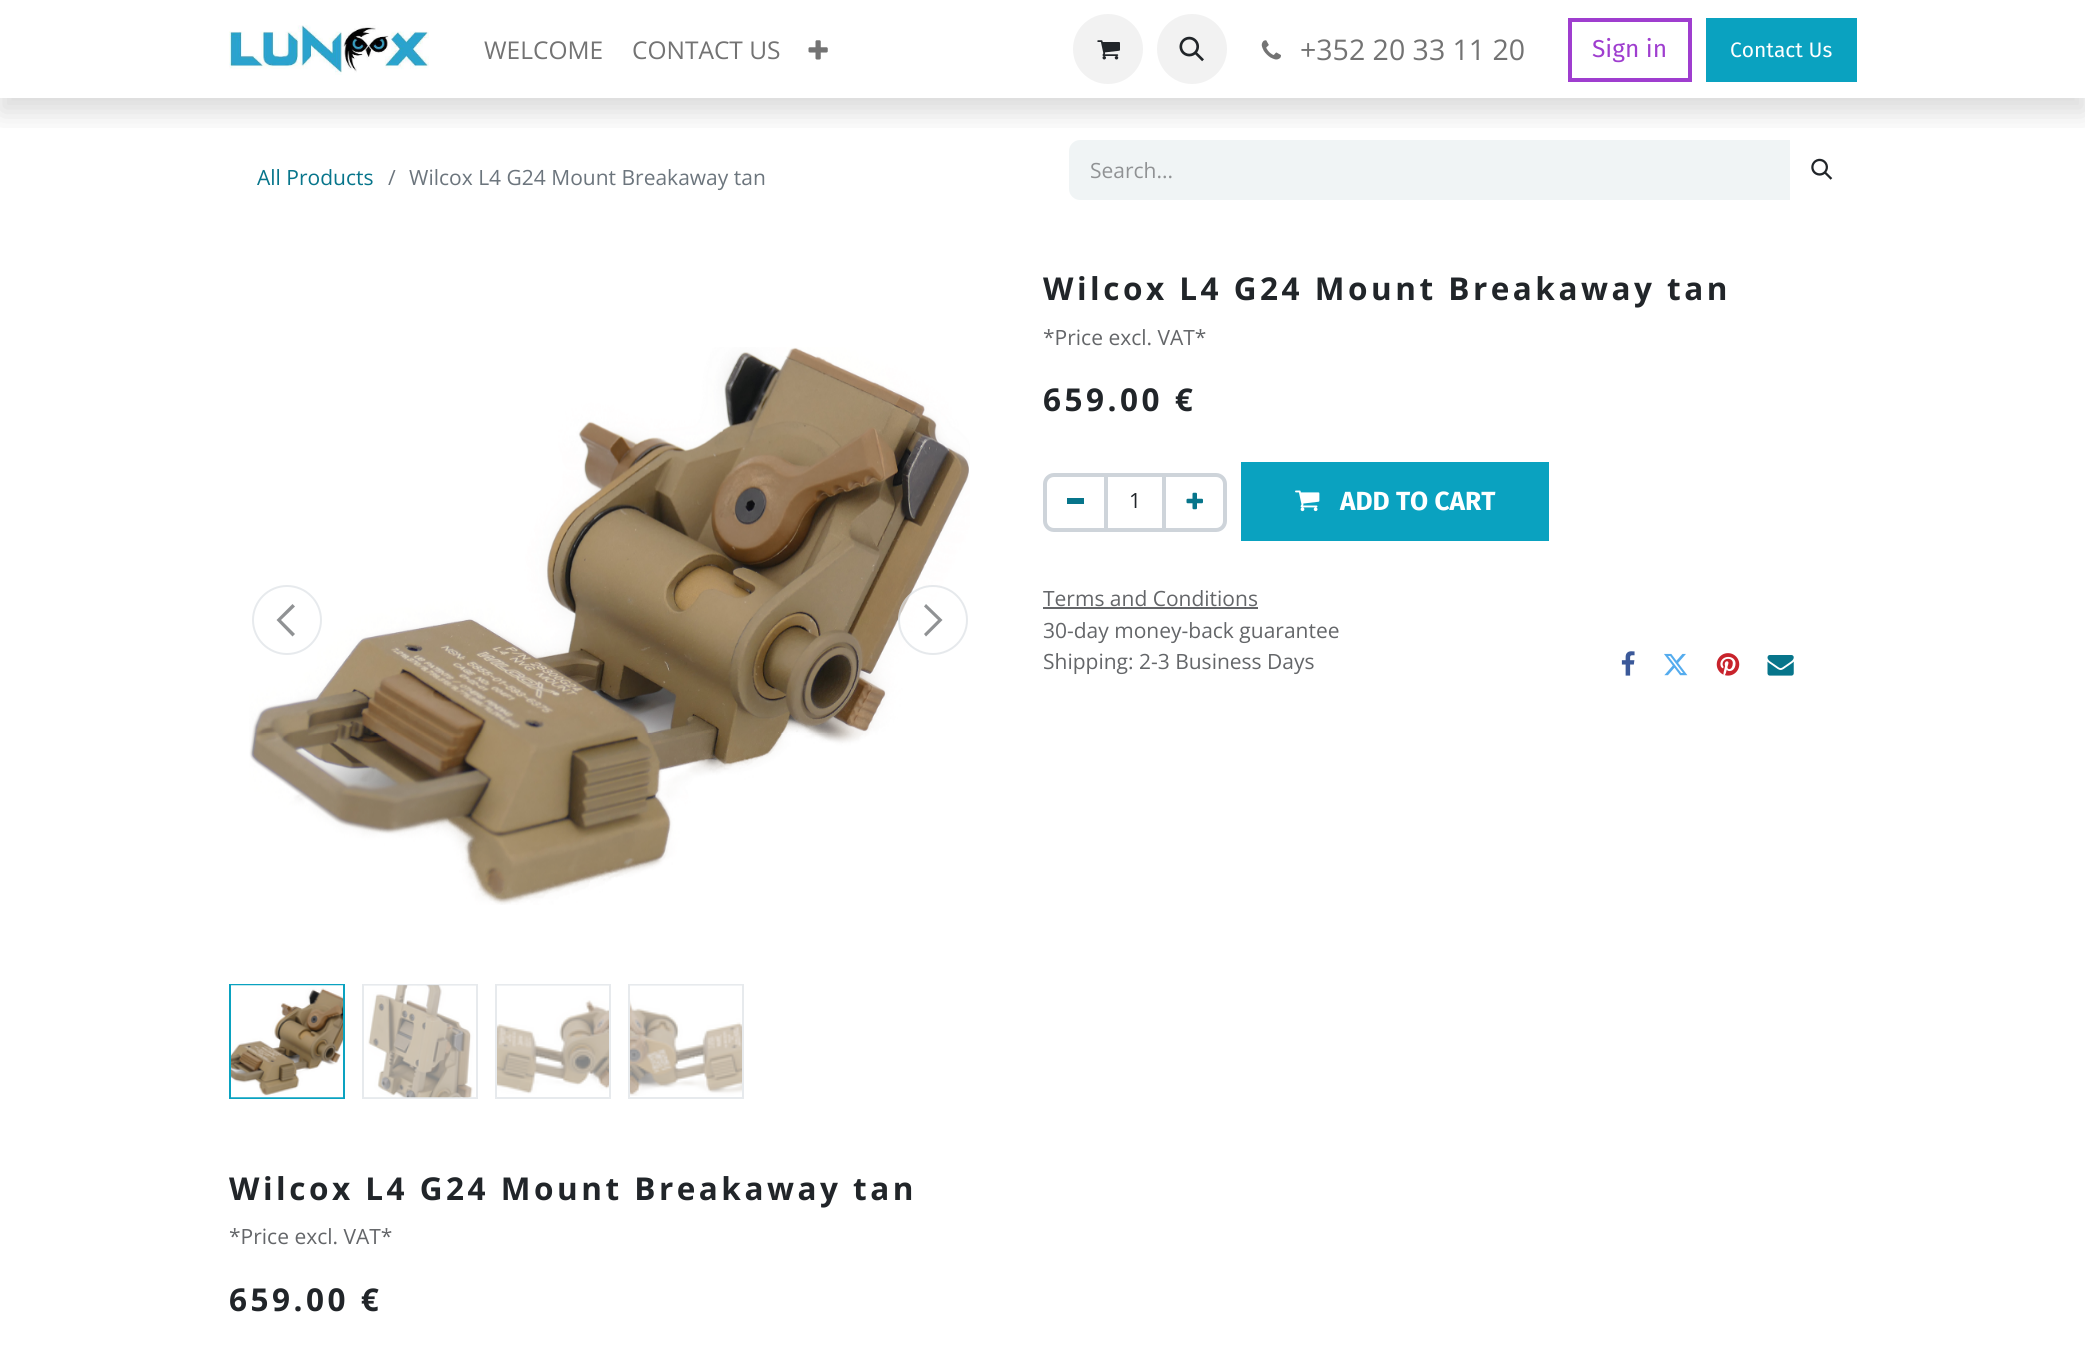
#include <cairo.h>
#include <math.h>
#include <stddef.h>

typedef struct { const char *family; double size; int italic, bold; unsigned color; } style_t;
static cairo_t *ctx;

static void ink(unsigned color) {
    cairo_set_source_rgb(ctx, (color >> 16) / 255.0, (color >> 8 & 255) / 255.0, (color & 255) / 255.0);
}

static void write(double x, double y, const char *s, const style_t *st) {
    cairo_select_font_face(ctx, st->family, st->italic ? CAIRO_FONT_SLANT_ITALIC : CAIRO_FONT_SLANT_NORMAL,
        st->bold ? CAIRO_FONT_WEIGHT_BOLD : CAIRO_FONT_WEIGHT_NORMAL);
    cairo_set_font_size(ctx, st->size);
    ink(st->color);
    cairo_move_to(ctx, x, y);
    cairo_show_text(ctx, s);
}

static void write_spaced(double x, double y, const char *s, double letter, double word) {
    cairo_move_to(ctx, x, y);
    while (*s) {
        char ch[5] = {0};
        int n = 0;
        do ch[n++] = *s++; while ((*s & 0xC0) == 0x80);
        cairo_show_text(ctx, ch);
        cairo_rel_move_to(ctx, letter + word * (*ch == ' '), 0);
    }
}

static void block(double x, double y, double w, double h, unsigned color) {
    ink(color);
    cairo_rectangle(ctx, x, y, w, h);
    cairo_fill(ctx);
}

static void round_path(double x, double y, double w, double h, double r) {
    cairo_new_sub_path(ctx);
    cairo_arc(ctx, x + w - r, y + h - r, r, 0, M_PI / 2);
    cairo_arc(ctx, x + r, y + h - r, r, M_PI / 2, M_PI);
    cairo_arc(ctx, x + r, y + r, r, M_PI, 1.5 * M_PI);
    cairo_arc(ctx, x + w - r, y + r, r, 1.5 * M_PI, 2 * M_PI);
    cairo_close_path(ctx);
}

static void blur_box(double x, double y, double w, double h, double r, double blur, double alpha) {
    cairo_push_group_with_content(ctx, CAIRO_CONTENT_ALPHA);
    cairo_set_operator(ctx, CAIRO_OPERATOR_SOURCE);
    for (int i = 15; i >= -15 && fmin(w, h) + blur * i / 3 > 0; i -= 2) {
        double e = blur * i / 6;
        cairo_set_source_rgba(ctx, 0, 0, 0, alpha * erfc((i - 1) / 8.5) / 2);
        round_path(x - e, y - e, w + 2 * e, h + 2 * e, fmax(0, fmin(r + e + blur * .6, fmin(w, h) / 2 + e)));
        cairo_fill(ctx);
    }
    cairo_pattern_t *soft = cairo_pop_group(ctx);
    cairo_mask(ctx, soft);
    cairo_pattern_destroy(soft);
}

static void paste(const char *path, double x, double y, double w, double h) {
    cairo_surface_t *image = cairo_image_surface_create_from_png(path);
    cairo_save(ctx);
    cairo_set_source_surface(ctx, image, x, y);
    cairo_rectangle(ctx, x, y, w, h);
    cairo_fill(ctx);
    cairo_restore(ctx);
    cairo_surface_destroy(image);
}

static const style_t s1 = {"Open Sans", 24.5, 0, 0, 0x737373};
static const style_t s2 = {"Open Sans", 28.5, 0, 0, 0x737373};
static const style_t s3 = {"Fira Sans", 24.5, 0, 0, 0x9f3ecf};
static const style_t s4 = {"Fira Sans", 21, 0, 0, 0xffffff};
static const style_t s5 = {"Open Sans", 21, 0, 0, 0x07758b};
static const style_t s6 = {"Open Sans", 21, 0, 0, 0x6c757d};
static const style_t s7 = {"Open Sans", 21, 0, 0, 0x909294};
static const style_t s8 = {"Open Sans", 21, 0, 0, 0x646669};
static const style_t s9 = {"Open Sans", 21, 0, 0, 0x212529};
static const style_t s10 = {"Fira Sans", 26.25, 0, 1, 0xffffff};

int main(void) {
    cairo_surface_t *surface = cairo_image_surface_create(CAIRO_FORMAT_RGB24, 2085, 1348);
    ctx = cairo_create(surface);
    cairo_font_options_t *options = cairo_font_options_create();
    cairo_font_options_set_hint_metrics(options, CAIRO_HINT_METRICS_OFF);
    cairo_font_options_set_hint_style(options, CAIRO_HINT_STYLE_NONE);
    cairo_set_font_options(ctx, options);
    cairo_set_miter_limit(ctx, 4);
    ink(0xffffff);
    cairo_paint(ctx);
    ink(0xf0f4f5);
    cairo_new_path(ctx);
    cairo_move_to(ctx, 1080, 140);
    cairo_line_to(ctx, 1790, 140);
    cairo_line_to(ctx, 1790, 200);
    cairo_line_to(ctx, 1080, 200);
    cairo_curve_to(ctx, 1074, 200, 1069, 195, 1069, 189);
    cairo_line_to(ctx, 1069, 151);
    cairo_curve_to(ctx, 1069, 145, 1074, 140, 1080, 140);
    cairo_close_path(ctx);
    cairo_fill(ctx);
    cairo_save(ctx);
    cairo_rectangle(ctx, 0, 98, 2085, 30);
    cairo_clip(ctx);
    ink(0x000000);
    blur_box(0, 14, 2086, 98, 0, 14, 0.15);
    cairo_restore(ctx);
    paste("pic1.png", 229, 25, 200, 50);
    write(484, 59, "WELCOME", &s1);
    write(632, 59, "CONTACT US", &s1);
    paste("pic2.png", 808, 40, 20, 20);
    ink(0xf2f2f2);
    cairo_arc(ctx, 1108, 49, 35, 0, 2 * M_PI);
    cairo_fill(ctx);
    paste("pic3.png", 1097, 40, 23, 20);
    cairo_arc(ctx, 1192, 49, 35, 0, 2 * M_PI);
    cairo_fill(ctx);
    paste("pic4.png", 1179, 36, 25, 26);
    paste("pic5.png", 1261, 40, 20, 20);
    write(1300, 60, "+352 20 33 11 20", &s2);
    cairo_rectangle(ctx, 1570, 20, 120, 60);
    ink(0x9f3ecf);
    cairo_set_line_width(ctx, 4);
    cairo_stroke(ctx);
    write(1592, 57, "Sign in", &s3);
    ink(0x0aa2c0);
    cairo_rectangle(ctx, 1708, 20, 147, 60);
    cairo_fill_preserve(ctx);
    cairo_stroke(ctx);
    write(1730, 57, "Contact Us", &s4);
    write(257, 185, "All Products", &s5);
    write(388, 185, "/", &s6);
    write(409, 185, "Wilcox L4 G24 Mount Breakaway tan", &s6);
    write(1090, 178, "Search...", &s7);
    paste("pic6.png", 1811, 158, 22, 22);
    paste("pic7.png", 249, 347, 721, 558);
    cairo_arc(ctx, 287, 620, 34, 0, 2 * M_PI);
    ink(0xe7eaed);
    cairo_set_line_width(ctx, 2);
    cairo_stroke(ctx);
    ink(0x909294);
    cairo_new_path(ctx);
    cairo_move_to(ctx, 276.5, 620);
    cairo_line_to(ctx, 292.5, 604);
    cairo_line_to(ctx, 295, 606.5);
    cairo_line_to(ctx, 281, 620);
    cairo_line_to(ctx, 295, 634);
    cairo_line_to(ctx, 292.5, 636.5);
    cairo_close_path(ctx);
    cairo_fill(ctx);
    cairo_set_source_rgba(ctx, 1, 1, 1, 0.5);
    cairo_arc(ctx, 933, 620, 35, 0, 2 * M_PI);
    cairo_fill(ctx);
    cairo_arc(ctx, 933, 620, 34, 0, 2 * M_PI);
    cairo_set_source_rgba(ctx, 0.808, 0.831, 0.855, 0.5);
    cairo_stroke(ctx);
    ink(0x909294);
    cairo_new_path(ctx);
    cairo_move_to(ctx, 942.5, 620);
    cairo_line_to(ctx, 926, 636.5);
    cairo_line_to(ctx, 924, 634);
    cairo_line_to(ctx, 938, 620);
    cairo_line_to(ctx, 924, 606.5);
    cairo_line_to(ctx, 926, 604);
    cairo_close_path(ctx);
    cairo_fill(ctx);
    cairo_rectangle(ctx, 230, 985, 114, 113);
    ink(0x0aa2c0);
    cairo_stroke(ctx);
    paste("pic8.png", 231, 985, 112, 113);
    cairo_rectangle(ctx, 363, 985, 114, 113);
    ink(0xe7eaed);
    cairo_stroke(ctx);
    paste("pic9.png", 364, 985, 112, 113);
    cairo_rectangle(ctx, 496, 985, 114, 113);
    cairo_stroke(ctx);
    paste("pic10.png", 497, 985, 112, 109);
    cairo_rectangle(ctx, 629, 985, 114, 113);
    cairo_stroke(ctx);
    paste("pic11.png", 630, 985, 112, 111);
    cairo_select_font_face(ctx, "Open Sans", CAIRO_FONT_SLANT_NORMAL, CAIRO_FONT_WEIGHT_BOLD);
    cairo_set_font_size(ctx, 31.5);
    ink(0x212529);
    write_spaced(1043, 300, "Wilcox L4 G24 Mount Breakaway tan", 3.5, 0);
    write(1043, 345, "*Price excl. VAT*", &s8);
    cairo_select_font_face(ctx, "Open Sans", CAIRO_FONT_SLANT_NORMAL, CAIRO_FONT_WEIGHT_BOLD);
    cairo_set_font_size(ctx, 31.5);
    ink(0x212529);
    write_spaced(1043, 411, "659.00 €", 3.5, 0);
    cairo_rectangle(ctx, 1106, 475, 58, 55);
    ink(0xced4da);
    cairo_set_line_width(ctx, 4);
    cairo_stroke(ctx);
    cairo_new_path(ctx);
    cairo_move_to(ctx, 1054, 475);
    cairo_line_to(ctx, 1106, 475);
    cairo_line_to(ctx, 1106, 530);
    cairo_line_to(ctx, 1054, 530);
    cairo_curve_to(ctx, 1049, 530, 1045, 526, 1045, 521);
    cairo_line_to(ctx, 1045, 484);
    cairo_curve_to(ctx, 1045, 479, 1049, 475, 1054, 475);
    cairo_close_path(ctx);
    cairo_stroke(ctx);
    block(1067, 498, 17, 6, 0x07758b);
    write(1129, 508, "1", &s9);
    cairo_new_path(ctx);
    cairo_move_to(ctx, 1164, 475);
    cairo_line_to(ctx, 1216, 475);
    cairo_curve_to(ctx, 1221, 475, 1225, 479, 1225, 484);
    cairo_line_to(ctx, 1225, 521);
    cairo_curve_to(ctx, 1225, 526, 1221, 530, 1216, 530);
    cairo_line_to(ctx, 1164, 530);
    cairo_close_path(ctx);
    ink(0xced4da);
    cairo_stroke(ctx);
    paste("pic12.png", 1186, 492, 17, 18);
    ink(0x0aa2c0);
    cairo_rectangle(ctx, 1243, 464, 304, 75);
    cairo_fill_preserve(ctx);
    cairo_stroke(ctx);
    paste("pic13.png", 1295, 490, 25, 22);
    write(1340, 510, "ADD TO CART", &s10);
    write(1043, 606, "Terms and Conditions", &s8);
    block(1043, 607, 215, 2, 0x646669);
    write(1043, 638, "30-day money-back guarantee", &s8);
    write(1043, 669, "Shipping: 2-3 Business Days", &s8);
    paste("pic14.png", 1621, 651, 14, 25);
    paste("pic15.png", 1664, 653, 24, 23);
    paste("pic16.png", 1716, 653, 24, 23);
    paste("pic17.png", 1767, 655, 27, 21);
    cairo_select_font_face(ctx, "Open Sans", CAIRO_FONT_SLANT_NORMAL, CAIRO_FONT_WEIGHT_BOLD);
    cairo_set_font_size(ctx, 31.5);
    ink(0x212529);
    write_spaced(229, 1200, "Wilcox L4 G24 Mount Breakaway tan", 3.5, 0);
    write(229, 1244, "*Price excl. VAT*", &s8);
    cairo_select_font_face(ctx, "Open Sans", CAIRO_FONT_SLANT_NORMAL, CAIRO_FONT_WEIGHT_BOLD);
    cairo_set_font_size(ctx, 31.5);
    ink(0x212529);
    write_spaced(229, 1311, "659.00 €", 3.5, 0);
    cairo_surface_write_to_png(surface, "screenshot.png");
    cairo_font_options_destroy(options);
    cairo_destroy(ctx);
    cairo_surface_destroy(surface);
    return 0;
}
